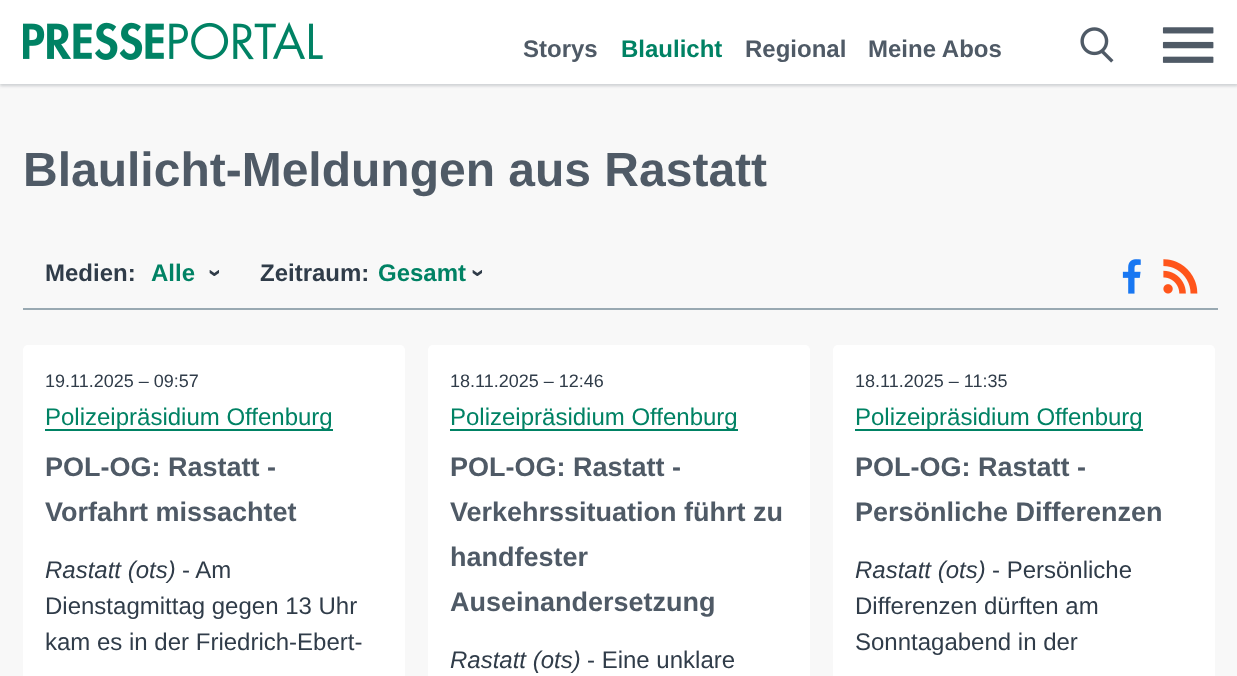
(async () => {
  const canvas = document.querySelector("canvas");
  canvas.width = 1237;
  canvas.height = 676;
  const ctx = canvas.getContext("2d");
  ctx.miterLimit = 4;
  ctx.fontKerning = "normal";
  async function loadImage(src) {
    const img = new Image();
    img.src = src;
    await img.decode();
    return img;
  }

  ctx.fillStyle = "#f8f8f8";
  ctx.fillRect(0, 0, 1237, 676);
  ctx.fillStyle = "rgba(79, 90, 102, 0.16)";
  ctx.filter = "blur(1.5px)";
  ctx.beginPath();
  ctx.rect(0, 2, 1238, 84);
  ctx.fill();
  ctx.filter = "none";
  ctx.fillStyle = "rgba(79, 90, 102, 0.1)";
  ctx.filter = "blur(1.5px)";
  ctx.beginPath();
  ctx.rect(0, 2, 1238, 84);
  ctx.fill();
  ctx.filter = "none";
  ctx.fillStyle = "#ffffff";
  ctx.fillRect(0, 0, 1237, 84);
  ctx.drawImage(await loadImage("img/1.png"), 23, 22, 300, 38);
  ctx.drawImage(await loadImage("img/2.png"), 1080, 27, 34, 36);
  ctx.drawImage(await loadImage("img/3.png"), 1162, 27, 52, 36);
  ctx.fillStyle = "#99a9b2";
  ctx.fillRect(23, 308, 1195, 2);
  ctx.drawImage(await loadImage("img/4.png"), 1122, 259, 19, 35);
  ctx.drawImage(await loadImage("img/5.png"), 1163, 259, 35, 35);
  ctx.fillStyle = "#ffffff";
  ctx.beginPath();
  ctx.roundRect(23, 345, 382, 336, 5);
  ctx.fill();
  ctx.fillStyle = "#008264";
  ctx.fillRect(45, 429, 288, 2);
  ctx.fillStyle = "#ffffff";
  ctx.beginPath();
  ctx.roundRect(428, 345, 382, 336, 5);
  ctx.fill();
  ctx.fillStyle = "#008264";
  ctx.fillRect(450, 429, 288, 2);
  ctx.fillStyle = "#ffffff";
  ctx.beginPath();
  ctx.roundRect(833, 345, 382, 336, 5);
  ctx.fill();
  ctx.fillStyle = "#008264";
  ctx.fillRect(855, 429, 288, 2);
  ctx.font = "bold 24px Liberation Sans";
  ctx.fillStyle = "#4f5a66";
  ctx.fillText("Storys", 523, 57);
  ctx.fillStyle = "#008264";
  ctx.fillText("Blaulicht", 621, 57);
  ctx.fillStyle = "#4f5a66";
  ctx.fillText("Regional", 745, 57);
  ctx.fillText("Meine Abos", 868, 57);
  ctx.font = "bold 48px Liberation Sans";
  ctx.fillText("Blaulicht-Meldungen aus Rastatt", 23, 186);
  ctx.font = "bold 24px Liberation Sans";
  ctx.fillStyle = "#303c49";
  ctx.fillText("Medien:", 45, 281);
  ctx.fillStyle = "#008264";
  ctx.fillText("Alle", 151, 281);
  ctx.fillStyle = "#303c49";
  ctx.save();
  ctx.translate(208, 269);
  ctx.rotate(90 * Math.PI / 180);
  ctx.fillText("›", 0, 0);
  ctx.restore();
  ctx.fillText("Zeitraum:", 260, 281);
  ctx.fillStyle = "#008264";
  ctx.fillText("Gesamt", 378, 281);
  ctx.fillStyle = "#303c49";
  ctx.save();
  ctx.translate(471, 269);
  ctx.rotate(90 * Math.PI / 180);
  ctx.fillText("›", 0, 0);
  ctx.restore();
  ctx.font = "18px Liberation Sans";
  ctx.fillText("19.11.2025 – 09:57", 45, 387);
  ctx.font = "24px Liberation Sans";
  ctx.fillStyle = "#008264";
  ctx.fillText("Polizeipräsidium Offenburg", 45, 425);
  ctx.font = "bold 27px Liberation Sans";
  ctx.fillStyle = "#4f5a66";
  ctx.fillText("POL-OG: Rastatt -", 45, 476);
  ctx.fillText("Vorfahrt missachtet", 45, 521);
  ctx.font = "italic 24px Liberation Sans";
  ctx.fillStyle = "#303c49";
  ctx.fillText("Rastatt (ots)", 45, 578);
  ctx.font = "24px Liberation Sans";
  for (const [text, x, y] of [
    ["- Am", 182, 578],
    ["Dienstagmittag gegen 13 Uhr", 45, 614],
    ["kam es in der Friedrich-Ebert-", 45, 650],
  ]) {
    ctx.fillText(text, x, y);
  }
  ctx.font = "18px Liberation Sans";
  ctx.fillText("18.11.2025 – 12:46", 450, 387);
  ctx.font = "24px Liberation Sans";
  ctx.fillStyle = "#008264";
  ctx.fillText("Polizeipräsidium Offenburg", 450, 425);
  ctx.font = "bold 27px Liberation Sans";
  ctx.fillStyle = "#4f5a66";
  for (const [text, x, y] of [
    ["POL-OG: Rastatt -", 450, 476],
    ["Verkehrssituation führt zu", 450, 521],
    ["handfester", 450, 566],
    ["Auseinandersetzung", 450, 611],
  ]) {
    ctx.fillText(text, x, y);
  }
  ctx.font = "italic 24px Liberation Sans";
  ctx.fillStyle = "#303c49";
  ctx.fillText("Rastatt (ots)", 450, 668);
  ctx.font = "24px Liberation Sans";
  ctx.fillText("- Eine unklare", 587, 668);
  ctx.font = "18px Liberation Sans";
  ctx.fillText("18.11.2025 – 11:35", 855, 387);
  ctx.font = "24px Liberation Sans";
  ctx.fillStyle = "#008264";
  ctx.fillText("Polizeipräsidium Offenburg", 855, 425);
  ctx.font = "bold 27px Liberation Sans";
  ctx.fillStyle = "#4f5a66";
  ctx.fillText("POL-OG: Rastatt -", 855, 476);
  ctx.fillText("Persönliche Differenzen", 855, 521);
  ctx.font = "italic 24px Liberation Sans";
  ctx.fillStyle = "#303c49";
  ctx.fillText("Rastatt (ots)", 855, 578);
  ctx.font = "24px Liberation Sans";
  for (const [text, x, y] of [
    ["- Persönliche", 992, 578],
    ["Differenzen dürften am", 855, 614],
    ["Sonntagabend in der", 855, 650],
  ]) {
    ctx.fillText(text, x, y);
  }
})();
